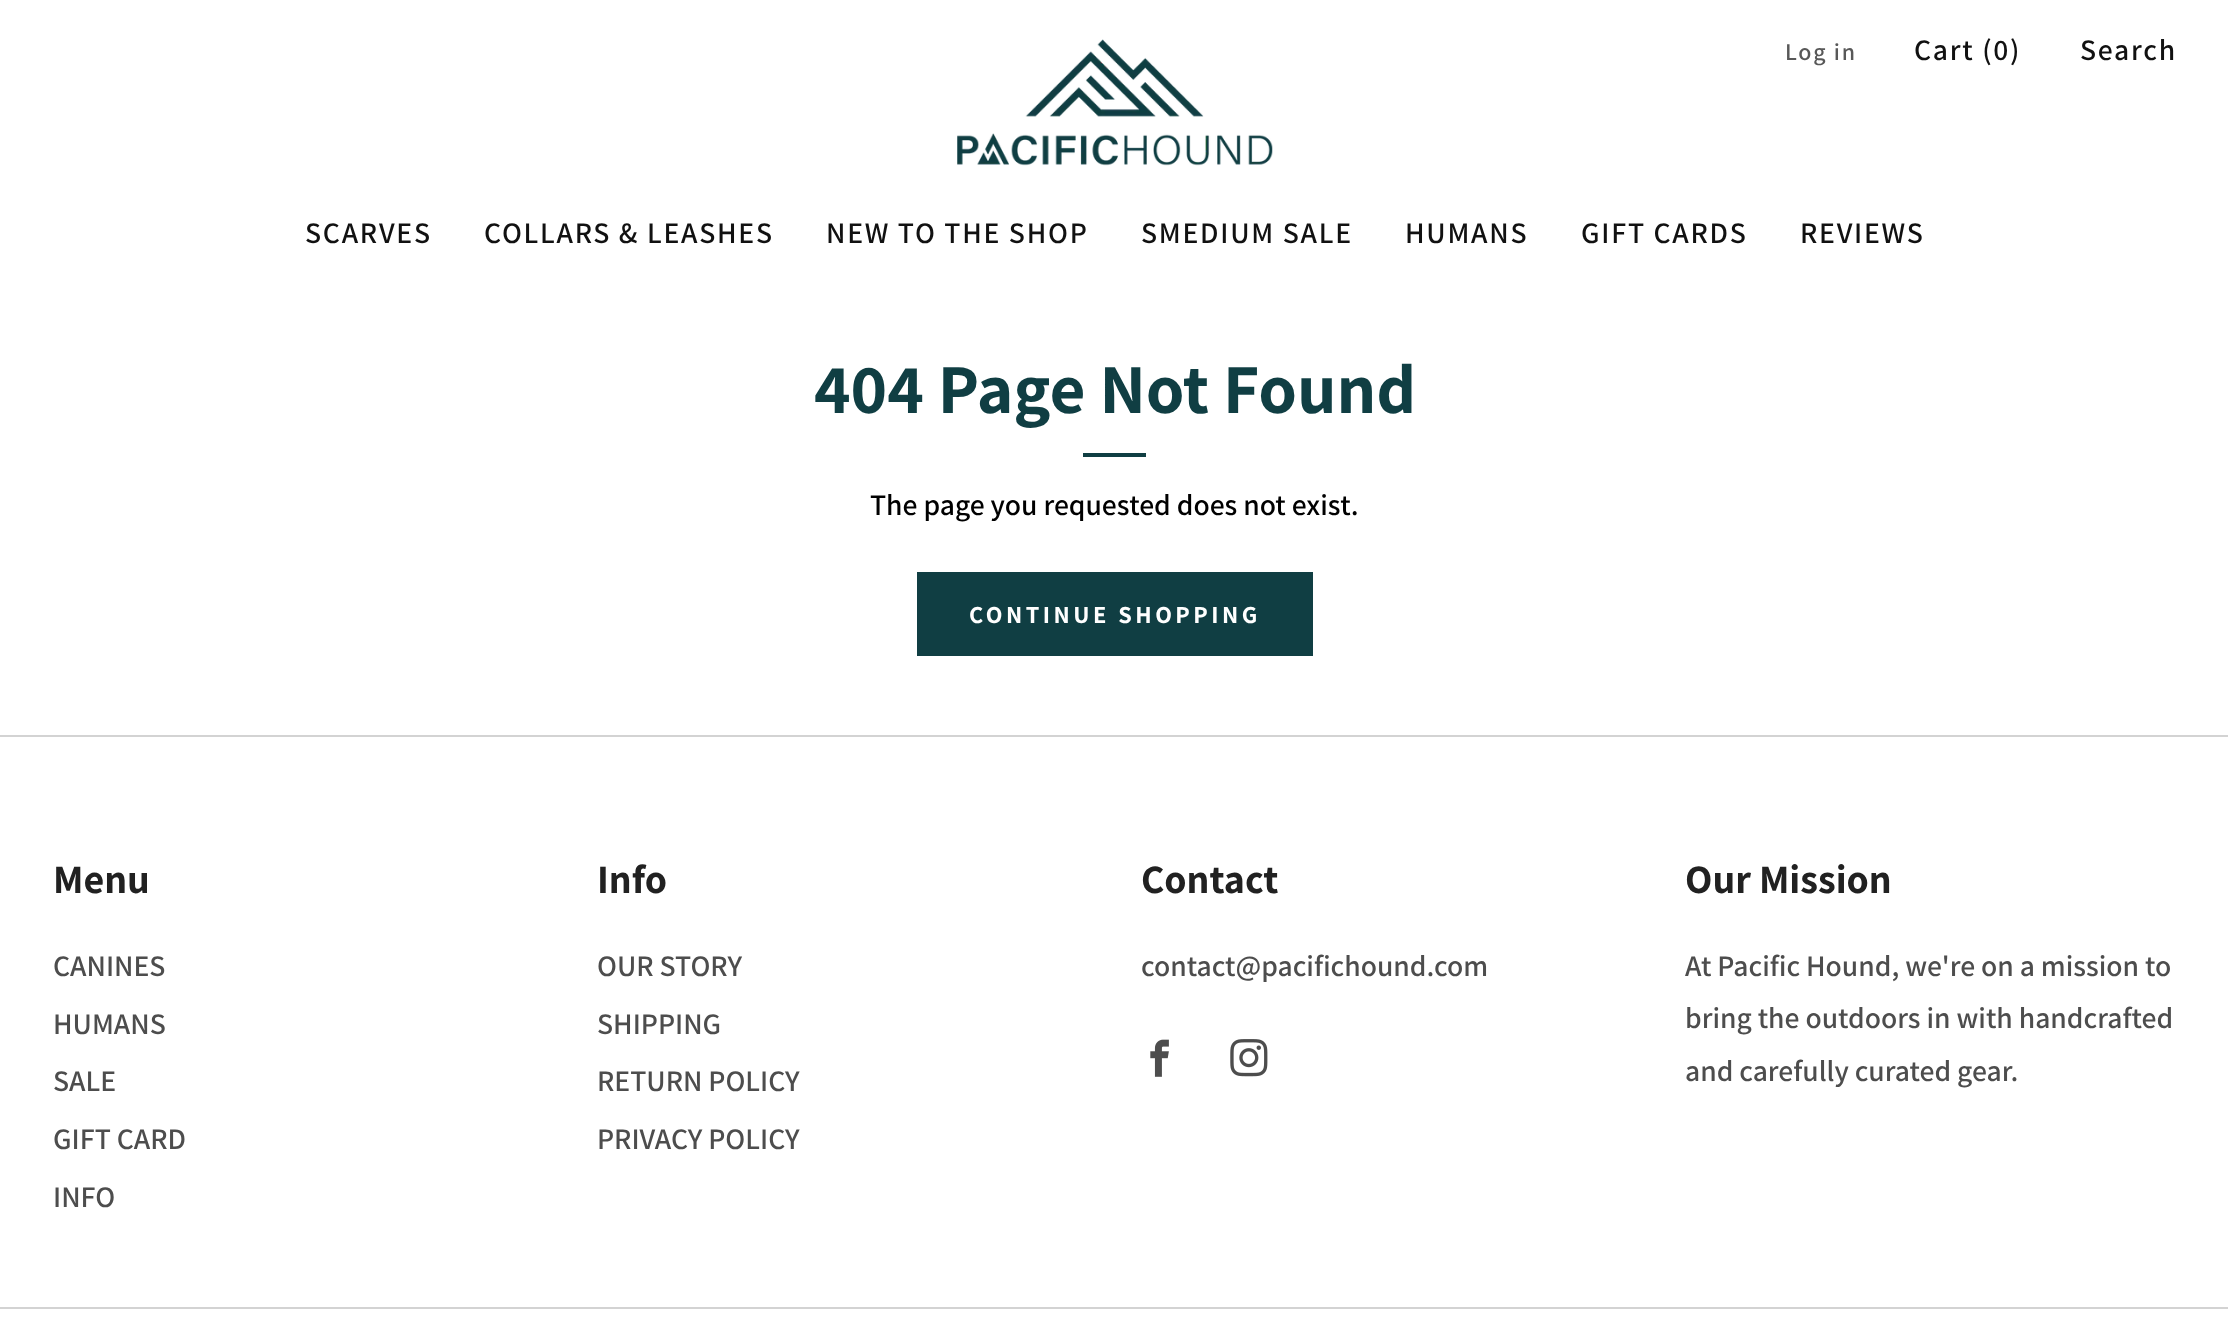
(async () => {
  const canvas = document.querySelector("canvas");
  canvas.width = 2228;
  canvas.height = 1330;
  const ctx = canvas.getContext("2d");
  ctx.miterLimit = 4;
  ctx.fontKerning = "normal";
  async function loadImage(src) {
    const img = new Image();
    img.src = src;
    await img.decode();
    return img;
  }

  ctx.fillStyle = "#ffffff";
  ctx.fillRect(0, 0, 2228, 1330);
  ctx.drawImage(await loadImage("img/1.png"), 957, 39, 316, 127);
  for (const [x, y, w, h, color] of [
    [1083, 453, 63, 4, "#103e43"],
    [917, 572, 396, 84, "#103e43"],
    [0, 735, 2228, 2, "#d3d3d3"],
  ]) {
    ctx.fillStyle = color;
    ctx.fillRect(x, y, w, h);
  }
  ctx.drawImage(await loadImage("img/2.png"), 1150, 1039, 19, 38);
  ctx.drawImage(await loadImage("img/3.png"), 1230, 1039, 38, 38);
  ctx.fillRect(0, 1307, 2228, 2);
  ctx.letterSpacing = "1.75px";
  ctx.font = "600 24px Assistant";
  ctx.fillStyle = "#585858";
  ctx.fillText("Log in", 1785, 60);
  ctx.font = "600 29.75px Assistant";
  ctx.fillStyle = "#111111";
  for (const [text, x, y] of [
    ["Cart (0)", 1914, 60],
    ["Search", 2080, 60],
    ["SCARVES", 305, 243],
    ["COLLARS & LEASHES", 484, 243],
    ["NEW TO THE SHOP", 826, 243],
    ["SMEDIUM SALE", 1141, 243],
    ["HUMANS", 1405, 243],
    ["GIFT CARDS", 1581, 243],
    ["REVIEWS", 1800, 243],
  ]) {
    ctx.fillText(text, x, y);
  }
  ctx.letterSpacing = "0px";
  ctx.font = "bold 70px Assistant";
  ctx.fillStyle = "#103e43";
  ctx.fillText("404 Page Not Found", 814, 413);
  ctx.font = "600 29.75px Assistant";
  ctx.fillStyle = "#000000";
  ctx.fillText("The page you requested does not exist.", 870, 515);
  ctx.letterSpacing = "3.5px";
  ctx.font = "bold 24.5px Assistant";
  ctx.fillStyle = "#ffffff";
  ctx.fillText("CONTINUE SHOPPING", 969, 623);
  ctx.letterSpacing = "0px";
  ctx.font = "bold 40.25px Assistant";
  ctx.fillStyle = "#212121";
  ctx.fillText("Menu", 53, 893);
  ctx.font = "600 29.75px Assistant";
  ctx.fillStyle = "#4d4d4d";
  for (const [text, x, y] of [
    ["CANINES", 53, 976],
    ["HUMANS", 53, 1034],
    ["SALE", 53, 1091],
    ["GIFT CARD", 53, 1149],
    ["INFO", 53, 1207],
  ]) {
    ctx.fillText(text, x, y);
  }
  ctx.font = "bold 40.25px Assistant";
  ctx.fillStyle = "#212121";
  ctx.fillText("Info", 597, 893);
  ctx.font = "600 29.75px Assistant";
  ctx.fillStyle = "#4d4d4d";
  for (const [text, x, y] of [
    ["OUR STORY", 597, 976],
    ["SHIPPING", 597, 1034],
    ["RETURN POLICY", 597, 1091],
    ["PRIVACY POLICY", 597, 1149],
  ]) {
    ctx.fillText(text, x, y);
  }
  ctx.font = "bold 40.25px Assistant";
  ctx.fillStyle = "#212121";
  ctx.fillText("Contact", 1141, 893);
  ctx.font = "600 29.75px Assistant";
  ctx.fillStyle = "#4d4d4d";
  ctx.fillText("contact@pacifichound.com", 1141, 976);
  ctx.font = "bold 40.25px Assistant";
  ctx.fillStyle = "#212121";
  ctx.fillText("Our Mission", 1685, 893);
  ctx.font = "600 29.75px Assistant";
  ctx.fillStyle = "#4d4d4d";
  for (const [text, x, y] of [
    ["At Pacific Hound, we're on a mission to", 1685, 976],
    ["bring the outdoors in with handcrafted", 1685, 1028],
    ["and carefully curated gear.", 1685, 1081],
  ]) {
    ctx.fillText(text, x, y);
  }
})();
